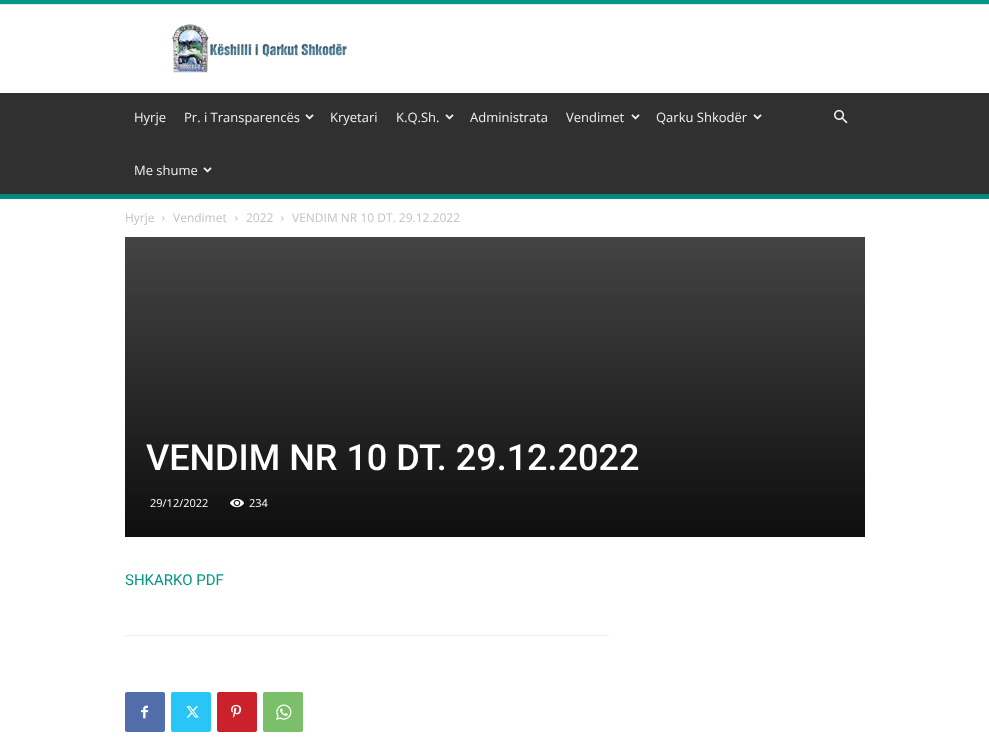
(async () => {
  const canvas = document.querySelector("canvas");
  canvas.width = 989;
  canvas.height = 749;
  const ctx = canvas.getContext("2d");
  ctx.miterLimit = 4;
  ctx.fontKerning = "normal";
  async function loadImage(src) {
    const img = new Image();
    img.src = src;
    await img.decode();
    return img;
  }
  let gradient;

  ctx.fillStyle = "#ffffff";
  ctx.fillRect(0, 0, 989, 749);
  ctx.fillStyle = "#009688";
  ctx.fillRect(0, 0, 989, 4);
  ctx.fillStyle = "#e9e9e9";
  ctx.fillRect(0, 4, 989, 1);
  ctx.drawImage(await loadImage("img/1.png"), 172, 24, 175, 49);
  ctx.fillStyle = "#303030";
  ctx.fillRect(0, 93, 989, 101);
  ctx.drawImage(await loadImage("img/2.png"), 305, 114, 9, 6);
  ctx.drawImage(await loadImage("img/2.png"), 445, 114, 9, 6);
  ctx.drawImage(await loadImage("img/2.png"), 631, 114, 9, 6);
  ctx.drawImage(await loadImage("img/2.png"), 753, 114, 9, 6);
  ctx.drawImage(await loadImage("img/2.png"), 203, 167, 9, 6);
  ctx.drawImage(await loadImage("img/3.png"), 834, 109, 14, 15);
  ctx.fillStyle = "#009688";
  ctx.fillRect(0, 194, 989, 5);
  ctx.drawImage(await loadImage("img/4.png"), 0, 194, 989, 5);
  ctx.drawImage(await loadImage("img/5.png"), 162, 216, 3, 5);
  ctx.drawImage(await loadImage("img/5.png"), 235, 216, 3, 5);
  ctx.drawImage(await loadImage("img/5.png"), 281, 216, 3, 5);
  gradient = ctx.createLinearGradient(495, 237, 495, 537);
  gradient.addColorStop(0, "#444444");
  gradient.addColorStop(1, "#0e0e0e");
  ctx.fillStyle = gradient;
  ctx.fillRect(125, 237, 740, 300);
  ctx.drawImage(await loadImage("img/6.png"), 230, 498, 14, 10);
  ctx.fillStyle = "#ededed";
  ctx.fillRect(125, 635, 484, 1);
  ctx.fillStyle = "#516eab";
  ctx.beginPath();
  ctx.roundRect(125, 692, 40, 40, 2);
  ctx.fill();
  ctx.drawImage(await loadImage("img/7.png"), 141, 705, 7, 14);
  ctx.fillStyle = "#29c5f6";
  ctx.beginPath();
  ctx.roundRect(171, 692, 40, 40, 2);
  ctx.fill();
  ctx.drawImage(await loadImage("img/8.png"), 186, 706, 13, 12);
  ctx.fillStyle = "#ca212a";
  ctx.beginPath();
  ctx.roundRect(217, 692, 40, 40, 2);
  ctx.fill();
  ctx.drawImage(await loadImage("img/9.png"), 231, 704, 11, 14);
  ctx.fillStyle = "#7bbf6a";
  ctx.beginPath();
  ctx.roundRect(263, 692, 40, 40, 2);
  ctx.fill();
  ctx.drawImage(await loadImage("img/10.png"), 276, 704, 16, 16);
  ctx.font = "13px Open Sans";
  ctx.fillStyle = "#efefef";
  for (const [text, x, y] of [
    ["Hyrje", 134, 122],
    ["Pr. i Transparencës", 184, 122],
    ["Kryetari", 330, 122],
    ["K.Q.Sh.", 396, 122],
    ["Administrata", 470, 122],
    ["Vendimet", 566, 122],
    ["Qarku Shkodër", 656, 122],
    ["Me shume", 134, 175],
  ]) {
    ctx.fillText(text, x, y);
  }
  ctx.font = "12px Open Sans";
  ctx.fillStyle = "#c3c3c3";
  for (const [text, x, y] of [
    ["Hyrje", 125, 222],
    ["Vendimet", 173, 222],
    ["2022", 246, 222],
    ["VENDIM NR 10 DT. 29.12.2022", 292, 222],
  ]) {
    ctx.fillText(text, x, y);
  }
  ctx.font = "500 36px Roboto";
  ctx.fillStyle = "#ffffff";
  ctx.fillText("VENDIM NR 10 DT. 29.12.2022", 146, 470);
  ctx.font = "11px Open Sans";
  ctx.fillText("29/12/2022", 150, 507);
  ctx.fillText("234", 249, 507);
  ctx.font = "15px Roboto";
  ctx.fillStyle = "#009688";
  ctx.fillText("SHKARKO PDF", 125, 585);
})();
